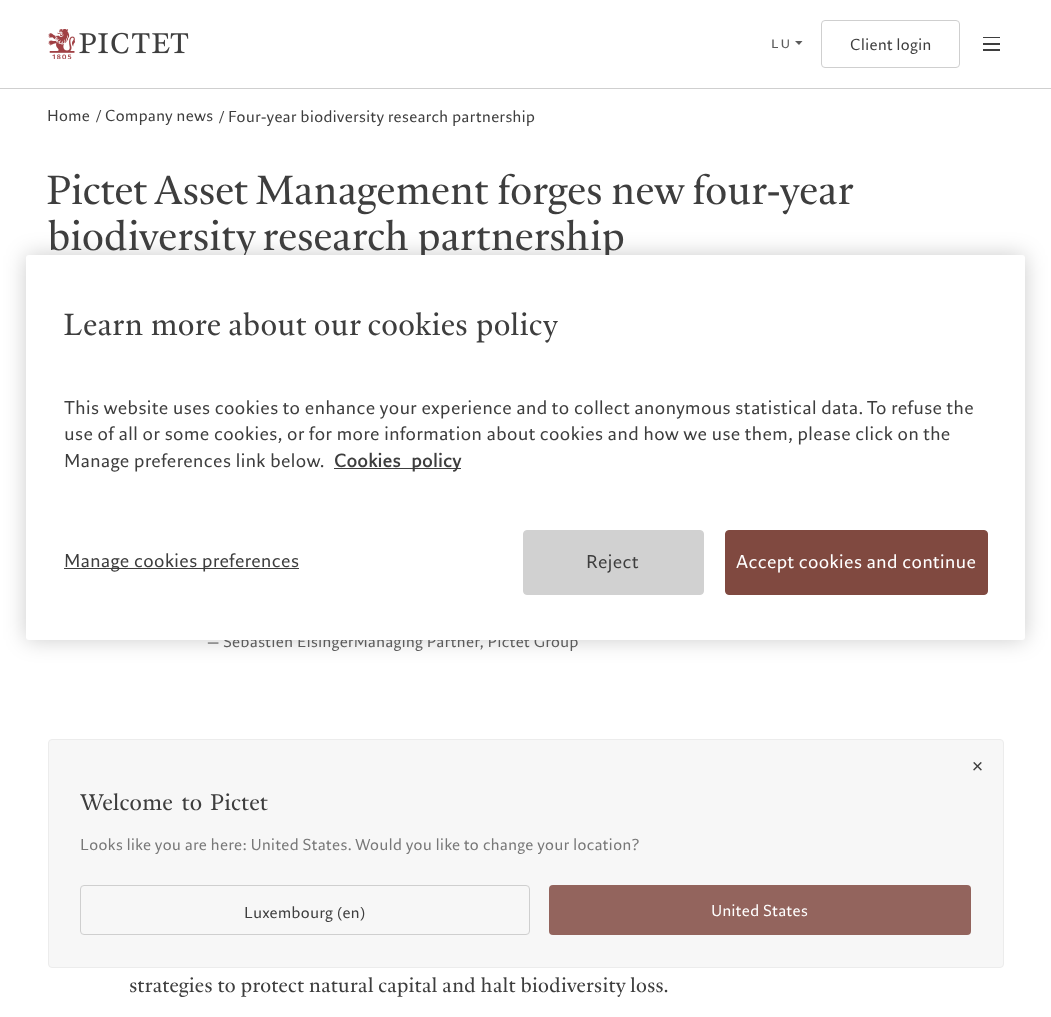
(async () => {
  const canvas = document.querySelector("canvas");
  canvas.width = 1051;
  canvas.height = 1017;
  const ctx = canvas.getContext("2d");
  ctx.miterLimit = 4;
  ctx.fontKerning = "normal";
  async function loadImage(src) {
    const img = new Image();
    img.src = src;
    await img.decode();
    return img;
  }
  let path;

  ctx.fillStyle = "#ffffff";
  ctx.fillRect(0, 0, 1051, 1017);
  ctx.fillStyle = "#cfcfcf";
  ctx.fillRect(0, 88, 1051, 1);
  ctx.drawImage(await loadImage("img/1.png"), 48, 29, 27, 30);
  ctx.drawImage(await loadImage("img/2.png"), 79, 32, 110, 22);
  ctx.fillStyle = "#5b5b5b";
  path = new Path2D("M795 41H802.5L799 45Z");
  ctx.fill(path);
  ctx.beginPath();
  ctx.roundRect(821.5, 20.5, 138, 47, 3.5);
  ctx.strokeStyle = "#cfcfcf";
  ctx.stroke();
  ctx.drawImage(await loadImage("img/3.png"), 983, 37, 17, 14);
  ctx.fillStyle = "rgba(0, 0, 0, 0.2)";
  ctx.filter = "blur(11px)";
  ctx.beginPath();
  ctx.roundRect(26, 255, 999, 385, 3);
  ctx.fill();
  ctx.filter = "none";
  ctx.fillStyle = "#f7f7f7";
  ctx.beginPath();
  ctx.roundRect(48.5, 739.5, 955, 228, 3.5);
  ctx.fill();
  ctx.strokeStyle = "#ececec";
  ctx.stroke();
  ctx.drawImage(await loadImage("img/4.png"), 973, 762, 9, 9);
  ctx.beginPath();
  ctx.roundRect(80.5, 885.5, 449, 49, 3.5);
  ctx.strokeStyle = "#cfcfcf";
  ctx.stroke();
  ctx.fillStyle = "#93645d";
  ctx.beginPath();
  ctx.roundRect(549, 885, 422, 50, 4);
  ctx.fill();
  ctx.font = "15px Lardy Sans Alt";
  ctx.fillStyle = "#5b5b5b";
  ctx.fillText("lu", 770, 48);
  ctx.font = "15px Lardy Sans";
  ctx.fillStyle = "#3e3e3e";
  for (const [text, x, y] of [
    ["Client login", 850, 50],
    ["Home", 47, 121],
    ["/", 95, 121],
    ["Company news", 105, 121],
    ["/", 218, 122],
    ["Four-year biodiversity research partnership", 228, 122],
  ]) {
    ctx.fillText(text, x, y);
  }
  ctx.letterSpacing = "-0.4px";
  ctx.wordSpacing = "-1.25px";
  ctx.font = "38.4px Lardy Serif";
  ctx.fillText("Pictet Asset Management forges new four-year", 47, 204);
  ctx.wordSpacing = "-2px";
  ctx.fillText("biodiversity research partnership", 47, 250);
  ctx.letterSpacing = "0px";
  ctx.wordSpacing = "0.25px";
  ctx.font = "15px Lardy Sans";
  ctx.fillStyle = "#5b5b5b";
  ctx.fillText("— Sébastien EisingerManaging Partner, Pictet Group", 207, 647);
  ctx.wordSpacing = "-0.25px";
  ctx.font = "18.75px 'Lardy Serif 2'";
  ctx.fillStyle = "#3e3e3e";
  ctx.fillText("strategies to protect natural capital and halt biodiversity loss.", 129, 992);
  ctx.fillStyle = "#ffffff";
  ctx.beginPath();
  ctx.roundRect(26, 255, 999, 385, 3);
  ctx.fill();
  ctx.font = "28.75px 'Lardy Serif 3'";
  ctx.fillStyle = "#3e3e3e";
  ctx.fillText("Learn more about our cookies policy", 64, 335);
  ctx.wordSpacing = "0px";
  ctx.font = "17.5px Lardy Sans";
  for (const [text, x, y] of [
    ["This website uses cookies to enhance your experience and to collect anonymous statistical data. To refuse the", 64, 414],
    ["use of all or some cookies, or for more information about cookies and how we use them, please click on the", 64, 440],
    ["Manage preferences link below.", 64, 467],
  ]) {
    ctx.fillText(text, x, y);
  }
  ctx.fillRect(334, 468, 127, 1);
  ctx.wordSpacing = "6px";
  ctx.font = "bold 17.5px Lardy Sans";
  ctx.fillText("Cookies policy", 334, 467);
  ctx.fillRect(64, 568, 235, 1);
  ctx.wordSpacing = "0px";
  ctx.font = "17.5px Lardy Sans";
  ctx.fillText("Manage cookies preferences", 64, 567);
  ctx.fillStyle = "#d1d1d1";
  ctx.beginPath();
  ctx.roundRect(523.5, 530.5, 180, 64, 3.5);
  ctx.fill();
  ctx.strokeStyle = "#d1d1d1";
  ctx.stroke();
  ctx.fillStyle = "#3e3e3e";
  ctx.fillText("Reject", 586, 568);
  ctx.fillStyle = "#804940";
  ctx.beginPath();
  ctx.roundRect(725.5, 530.5, 262, 64, 3.5);
  ctx.fill();
  ctx.strokeStyle = "#804940";
  ctx.stroke();
  ctx.fillStyle = "#ffffff";
  ctx.fillText("Accept cookies and continue", 736, 568);
  ctx.wordSpacing = "3px";
  ctx.font = "21.25px 'Lardy Serif 2'";
  ctx.fillStyle = "#3e3e3e";
  ctx.fillText("Welcome to Pictet", 80, 810);
  ctx.wordSpacing = "0px";
  ctx.font = "15px Lardy Sans";
  ctx.fillStyle = "#787878";
  ctx.fillText("Looks like you are here: United States. Would you like to change your location?", 80, 850);
  ctx.fillStyle = "#3e3e3e";
  ctx.fillText("Luxembourg (en)", 244, 918);
  ctx.fillStyle = "#ffffff";
  ctx.fillText("United States", 711, 916);
})();
